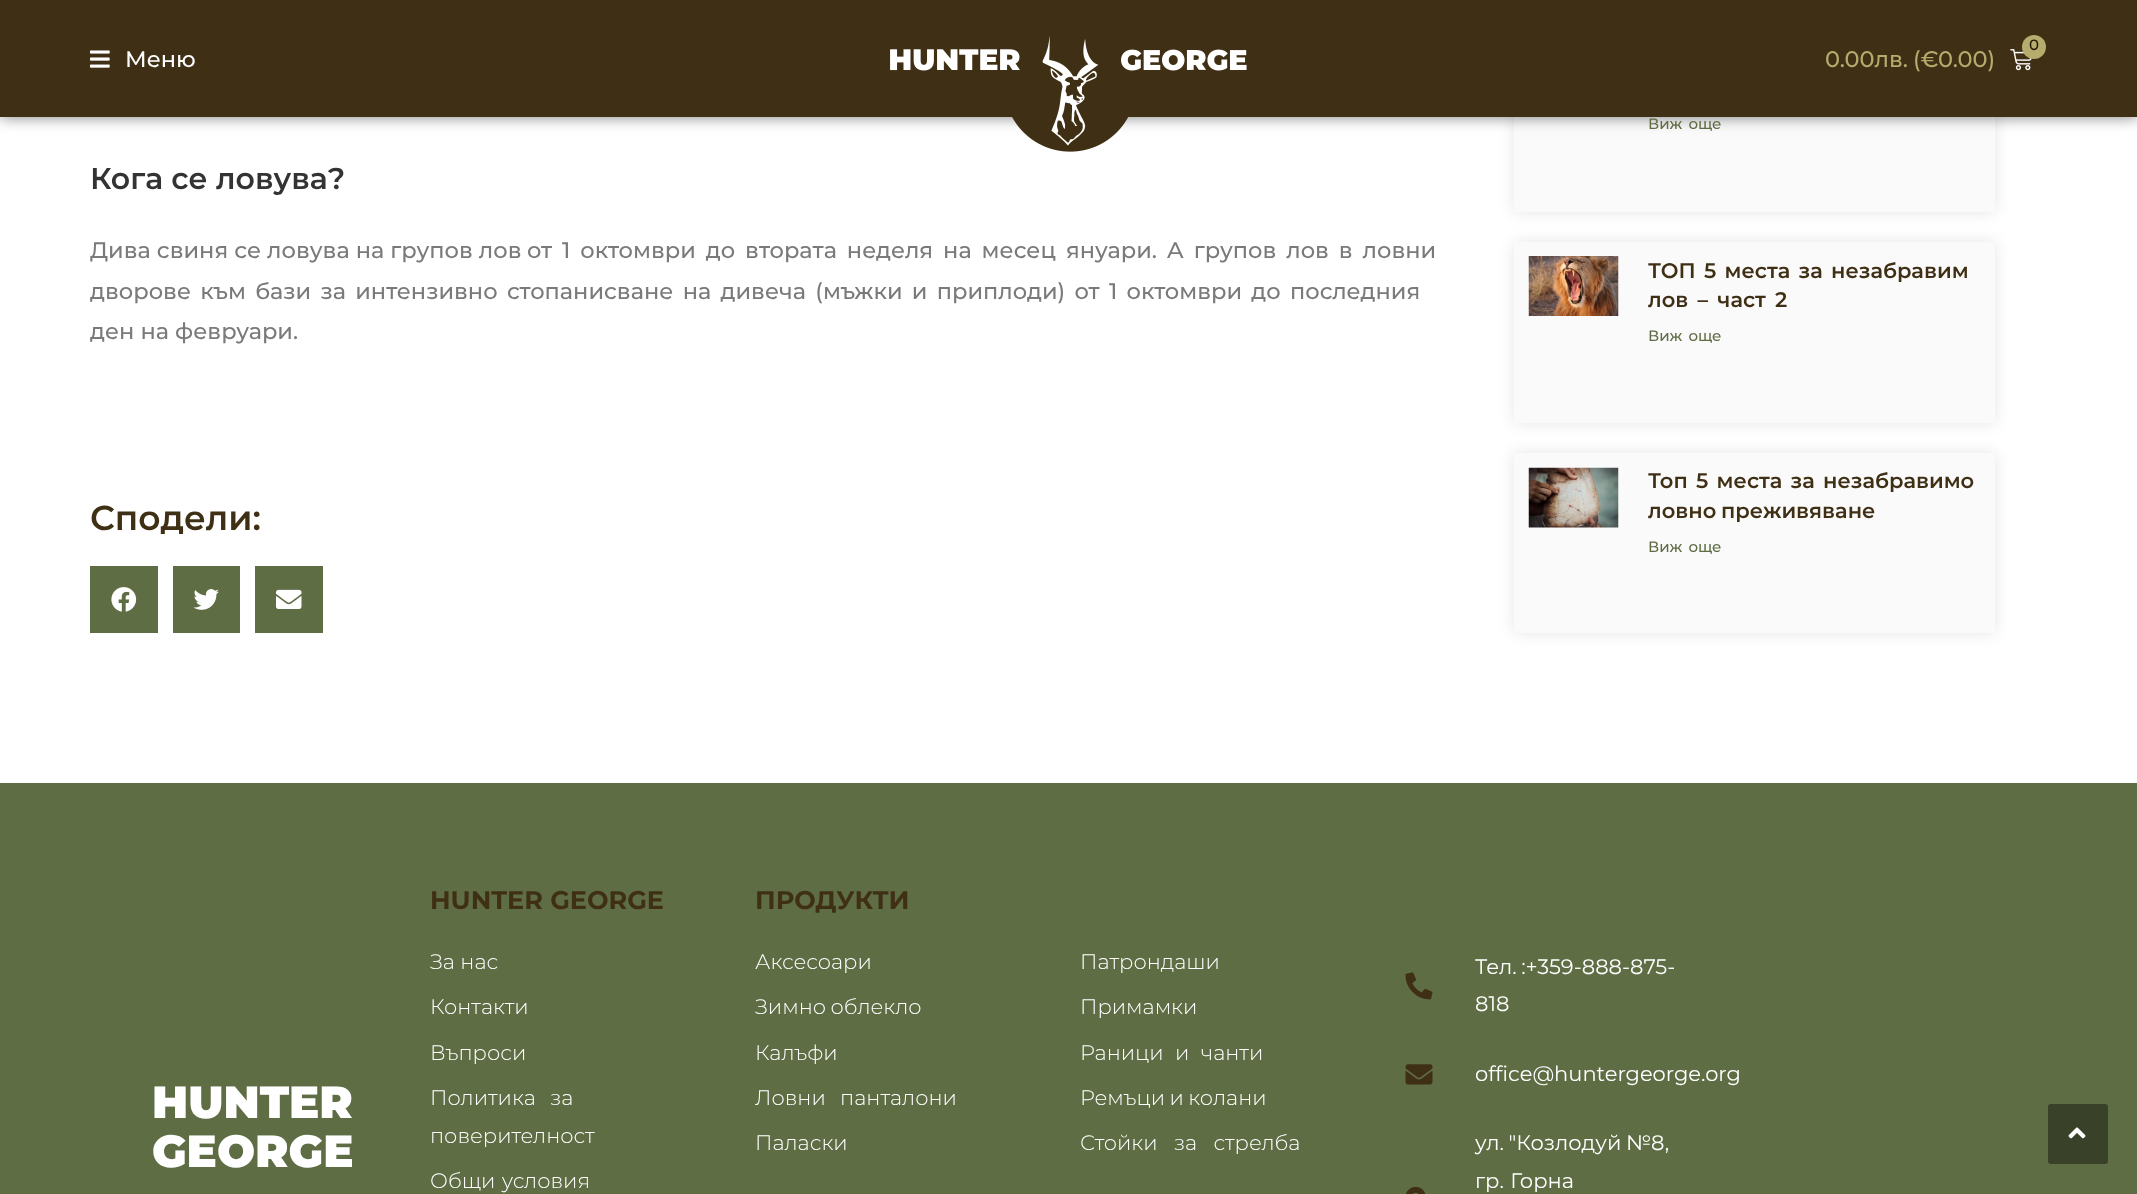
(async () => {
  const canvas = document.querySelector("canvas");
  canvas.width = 2137;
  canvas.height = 1194;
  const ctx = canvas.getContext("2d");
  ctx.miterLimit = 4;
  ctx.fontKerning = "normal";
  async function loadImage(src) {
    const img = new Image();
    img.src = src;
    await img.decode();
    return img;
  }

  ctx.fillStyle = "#ffffff";
  ctx.fillRect(0, 0, 2137, 1194);
  ctx.fillStyle = "rgba(0, 0, 0, 0.1)";
  ctx.filter = "blur(7.5px)";
  ctx.beginPath();
  ctx.rect(1514, 2, 481, 210);
  ctx.fill();
  ctx.filter = "none";
  ctx.fillStyle = "#fafafa";
  ctx.fillRect(1514, 117, 481, 95);
  ctx.fillStyle = "rgba(0, 0, 0, 0.5)";
  ctx.filter = "blur(7.5px)";
  ctx.beginPath();
  ctx.rect(0, 0, 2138, 117);
  ctx.fill();
  ctx.filter = "none";
  ctx.fillStyle = "#3f3015";
  ctx.fillRect(0, 0, 2137, 117);
  ctx.drawImage(await loadImage("img/1.png"), 90, 50, 20, 18);
  ctx.drawImage(await loadImage("img/2.png"), 890, 36, 357, 116);
  ctx.drawImage(await loadImage("img/3.png"), 2010, 49, 22, 22);
  ctx.fillStyle = "#b6ac6d";
  ctx.beginPath();
  ctx.arc(2034, 47, 12, 0, Math.PI * 2);
  ctx.fill();
  ctx.fillStyle = "#5f6d45";
  ctx.fillRect(90, 566, 68, 67);
  ctx.drawImage(await loadImage("img/4.png"), 111, 587, 26, 25);
  ctx.fillRect(173, 566, 67, 67);
  ctx.drawImage(await loadImage("img/5.png"), 193, 589, 26, 21);
  ctx.fillRect(255, 566, 68, 67);
  ctx.drawImage(await loadImage("img/6.png"), 276, 589, 26, 20);
  ctx.fillStyle = "rgba(0, 0, 0, 0.1)";
  ctx.filter = "blur(7.5px)";
  ctx.beginPath();
  ctx.rect(1514, 242, 481, 181);
  ctx.fill();
  ctx.filter = "none";
  ctx.fillStyle = "#fafafa";
  ctx.fillRect(1514, 242, 481, 181);
  ctx.drawImage(await loadImage("img/7.png"), 1528, 256, 91, 60);
  ctx.fillStyle = "rgba(0, 0, 0, 0.1)";
  ctx.filter = "blur(7.5px)";
  ctx.beginPath();
  ctx.rect(1514, 453, 481, 180);
  ctx.fill();
  ctx.filter = "none";
  ctx.fillStyle = "#fafafa";
  ctx.fillRect(1514, 453, 481, 180);
  ctx.drawImage(await loadImage("img/8.png"), 1528, 467, 91, 61);
  ctx.fillStyle = "#5f6d45";
  ctx.fillRect(0, 783, 2137, 411);
  ctx.drawImage(await loadImage("img/9.png"), 1405, 972, 28, 28);
  ctx.drawImage(await loadImage("img/10.png"), 1405, 1064, 28, 21);
  ctx.drawImage(await loadImage("img/11.png"), 1406, 1186, 20, 8);
  ctx.fillStyle = "#394129";
  ctx.beginPath();
  ctx.roundRect(2048, 1104, 60, 60, 3);
  ctx.fill();
  ctx.drawImage(await loadImage("img/12.png"), 2068, 1127, 18, 12);
  ctx.font = "500 22.5px Montserrat";
  ctx.fillStyle = "#ffffff";
  ctx.fillText("Меню", 125, 67);
  ctx.font = "500 15px Montserrat";
  ctx.fillStyle = "#1e1900";
  ctx.fillText("0", 2029, 50);
  ctx.font = "500 22.5px Montserrat";
  ctx.fillStyle = "#b5ab6d";
  ctx.fillText("0.00лв.", 1825, 67);
  ctx.fillText("(€0.00)", 1913, 67);
  ctx.font = "600 30px Montserrat";
  ctx.fillStyle = "#333333";
  ctx.fillText("Кога се ловува?", 90, 189);
  ctx.font = "500 22.5px Montserrat";
  ctx.fillStyle = "#7a7a7a";
  ctx.fillText("Дива свиня се ловува на групов лов", 90, 258);
  ctx.wordSpacing = "3.9px";
  ctx.fillText("от 1 октомври до втората неделя на месец януари. А групов лов в ловни", 527, 258);
  ctx.wordSpacing = "3.25px";
  ctx.fillText("дворове към бази за интензивно стопанисване на дивеча (мъжки и приплоди) от 1 октомври до последния", 90, 299);
  ctx.wordSpacing = "0px";
  ctx.fillText("ден на февруари.", 90, 339);
  ctx.font = "600 34.5px Montserrat";
  ctx.fillStyle = "#3f3015";
  ctx.fillText("Сподели:", 90, 530);
  ctx.wordSpacing = "2px";
  ctx.font = "500 15px Montserrat";
  ctx.fillStyle = "#5f6d45";
  ctx.fillText("Виж още", 1648, 129);
  ctx.wordSpacing = "2.5px";
  ctx.font = "600 21px Montserrat";
  ctx.fillStyle = "#3f3015";
  ctx.fillText("ТОП 5 места за незабравим", 1648, 278);
  ctx.wordSpacing = "3.5px";
  ctx.fillText("лов – част 2", 1648, 307);
  ctx.wordSpacing = "2px";
  ctx.font = "500 15px Montserrat";
  ctx.fillStyle = "#5f6d45";
  ctx.fillText("Виж още", 1648, 341);
  ctx.wordSpacing = "2.5px";
  ctx.font = "600 21px Montserrat";
  ctx.fillStyle = "#3f3015";
  ctx.fillText("Топ 5 места за незабравимо", 1648, 488);
  ctx.wordSpacing = "-1px";
  ctx.fillText("ловно преживяване", 1648, 518);
  ctx.wordSpacing = "2px";
  ctx.font = "500 15px Montserrat";
  ctx.fillStyle = "#5f6d45";
  ctx.fillText("Виж още", 1648, 552);
  ctx.wordSpacing = "0px";
  ctx.font = "900 45px Montserrat";
  ctx.fillStyle = "#ffffff";
  ctx.fillText("HUNTER", 152, 1118);
  ctx.fillText("GEORGE", 152, 1167);
  ctx.font = "bold 25.5px Montserrat";
  ctx.fillStyle = "#3f3015";
  ctx.fillText("HUNTER GEORGE", 430, 909);
  ctx.font = "300 21px Montserrat";
  ctx.fillStyle = "#ffffff";
  for (const [text, x, y] of [
    ["За нас", 430, 969],
    ["Контакти", 430, 1014],
    ["Въпроси", 430, 1060],
  ]) {
    ctx.fillText(text, x, y);
  }
  ctx.wordSpacing = "9px";
  ctx.fillText("Политика за", 430, 1105);
  ctx.wordSpacing = "0px";
  ctx.fillText("поверителност", 430, 1143);
  ctx.wordSpacing = "1px";
  ctx.fillText("Общи условия", 430, 1188);
  ctx.wordSpacing = "0px";
  ctx.font = "bold 25.5px Montserrat";
  ctx.fillStyle = "#3f3015";
  ctx.fillText("ПРОДУКТИ", 755, 909);
  ctx.font = "300 21px Montserrat";
  ctx.fillStyle = "#ffffff";
  ctx.fillText("Аксесоари", 755, 969);
  ctx.wordSpacing = "-1px";
  ctx.fillText("Зимно облекло", 755, 1014);
  ctx.wordSpacing = "0px";
  ctx.fillText("Калъфи", 755, 1060);
  ctx.wordSpacing = "9px";
  ctx.fillText("Ловни панталони", 755, 1105);
  ctx.wordSpacing = "0px";
  for (const [text, x, y] of [
    ["Паласки", 755, 1150],
    ["Патрондаши", 1080, 969],
    ["Примамки", 1080, 1014],
  ]) {
    ctx.fillText(text, x, y);
  }
  ctx.wordSpacing = "6px";
  ctx.fillText("Раници и чанти", 1080, 1060);
  ctx.wordSpacing = "-1px";
  ctx.fillText("Ремъци и колани", 1080, 1105);
  ctx.wordSpacing = "11px";
  ctx.fillText("Стойки за стрелба", 1080, 1150);
  ctx.wordSpacing = "-1px";
  ctx.font = "21px Montserrat";
  ctx.fillText("Тел. :+359-888-875-", 1475, 974);
  ctx.wordSpacing = "0px";
  ctx.fillText("818", 1475, 1011);
  ctx.fillText("office@huntergeorge.org", 1475, 1081);
  ctx.wordSpacing = "-1px";
  ctx.fillText("ул. \"Козлодуй №8,", 1475, 1150);
  ctx.wordSpacing = "1px";
  ctx.fillText("гр. Горна", 1475, 1188);
})();
